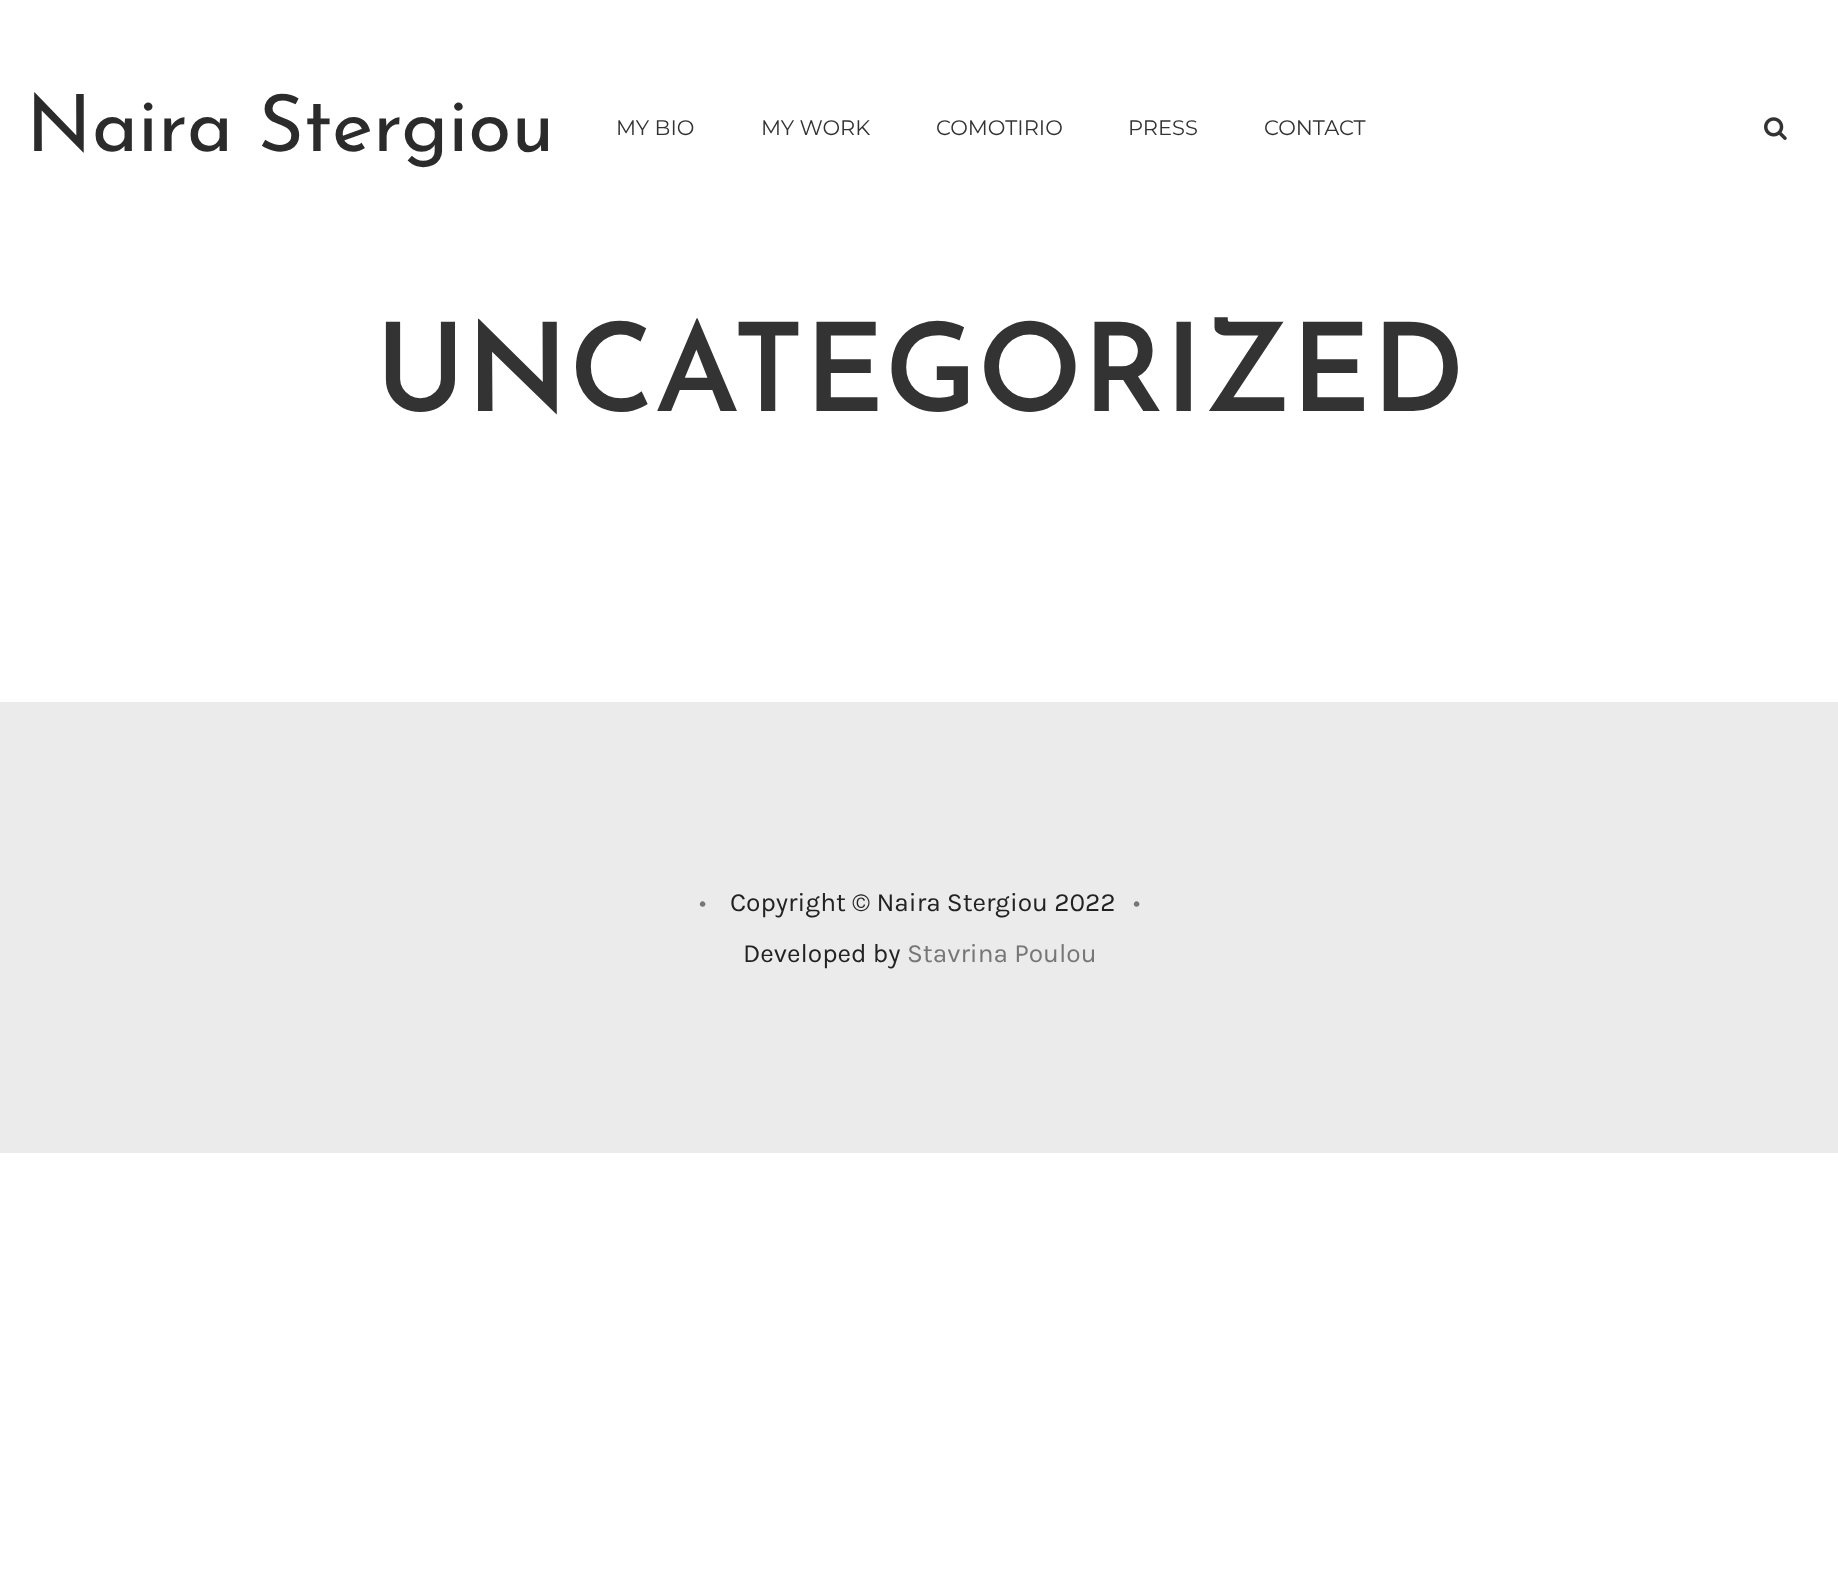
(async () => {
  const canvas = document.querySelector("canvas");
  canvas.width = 1838;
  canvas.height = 1577;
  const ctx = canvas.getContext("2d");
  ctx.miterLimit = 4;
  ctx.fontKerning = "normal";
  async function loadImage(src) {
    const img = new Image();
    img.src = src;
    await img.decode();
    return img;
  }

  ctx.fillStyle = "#ffffff";
  ctx.fillRect(0, 0, 1838, 1577);
  ctx.drawImage(await loadImage("img/1.png"), 1764, 117, 23, 23);
  ctx.fillStyle = "#ebebeb";
  ctx.fillRect(0, 702, 1838, 451);
  ctx.font = "78.75px Josefin Sans";
  ctx.fillStyle = "#2b2b2b";
  ctx.fillText("Naira Stergiou", 26, 151);
  ctx.font = "21px Montserrat";
  ctx.fillStyle = "#333333";
  for (const [text, x, y] of [
    ["MY BIO", 616, 135],
    ["MY WORK", 761, 135],
    ["COMOTIRIO", 936, 135],
    ["PRESS", 1128, 135],
    ["CONTACT", 1264, 135],
  ]) {
    ctx.fillText(text, x, y);
  }
  ctx.font = "600 122.5px Josefin Sans";
  ctx.fillText("UNCATEGORIZED", 375, 411);
  ctx.font = "26.25px Karla";
  ctx.fillStyle = "#767676";
  ctx.fillText("•", 699, 911);
  ctx.fillStyle = "#222222";
  ctx.fillText("Copyright © Naira Stergiou 2022", 730, 911);
  ctx.fillStyle = "#767676";
  ctx.fillText("•", 1133, 911);
  ctx.fillStyle = "#222222";
  ctx.fillText("Developed by", 743, 962);
  ctx.fillStyle = "#767676";
  ctx.fillText("Stavrina Poulou", 907, 962);
})();
